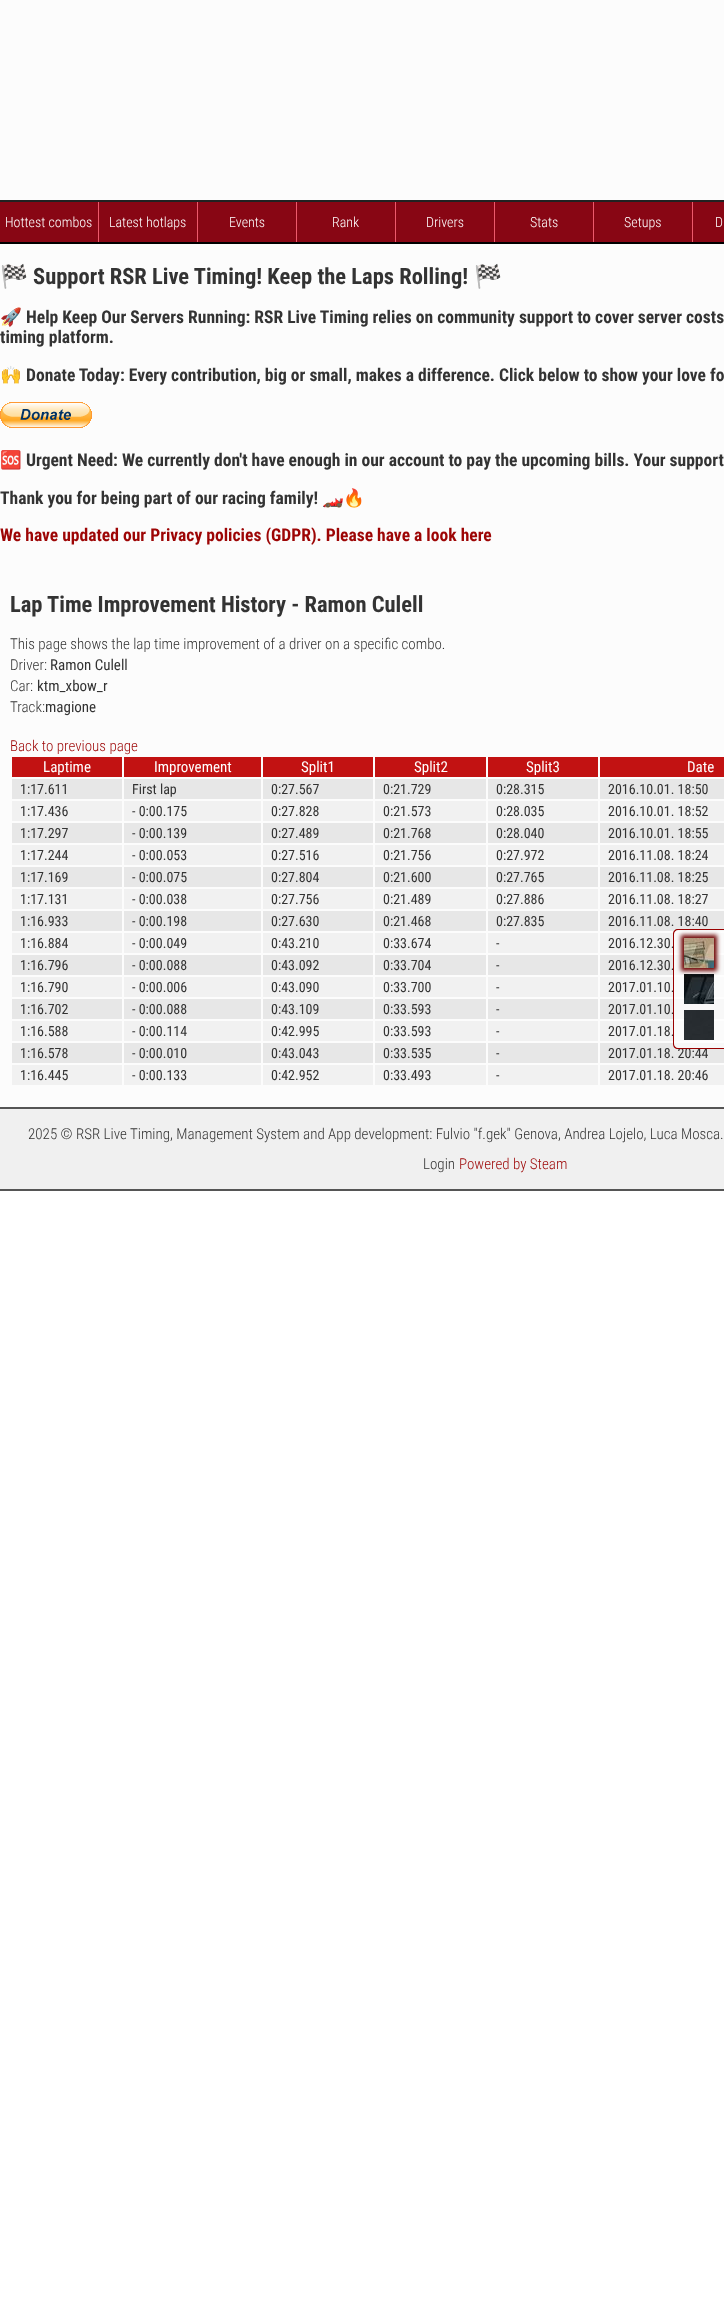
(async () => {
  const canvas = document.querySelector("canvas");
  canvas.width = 724;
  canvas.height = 2322;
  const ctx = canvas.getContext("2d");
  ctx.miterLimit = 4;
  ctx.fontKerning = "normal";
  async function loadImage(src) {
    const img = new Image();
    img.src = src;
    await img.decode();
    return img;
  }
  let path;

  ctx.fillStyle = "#ffffff";
  ctx.fillRect(0, 0, 724, 2322);
  for (const [x, y, w, h, color] of [
    [0, 0, 724, 1107, "#fcfcfc"],
    [0, 200, 724, 2, "#222222"],
    [0, 242, 724, 2, "#000000"],
    [0, 202, 98, 40, "#880614"],
    [98, 202, 1, 40, "#ed5a6c"],
    [99, 202, 98, 40, "#880614"],
    [197, 202, 1, 40, "#ed5a6c"],
    [198, 202, 98, 40, "#880614"],
    [296, 202, 1, 40, "#ed5a6c"],
    [297, 202, 98, 40, "#880614"],
    [395, 202, 1, 40, "#ed5a6c"],
    [396, 202, 98, 40, "#880614"],
    [494, 202, 1, 40, "#ed5a6c"],
    [495, 202, 98, 40, "#880614"],
    [593, 202, 1, 40, "#ed5a6c"],
    [594, 202, 98, 40, "#880614"],
    [692, 202, 1, 40, "#ed5a6c"],
    [693, 202, 31, 40, "#880614"],
  ]) {
    ctx.fillStyle = color;
    ctx.fillRect(x, y, w, h);
  }
  ctx.drawImage(await loadImage("img/1.png"), 0, 402, 92, 26);
  for (const [x, y, w, h, color] of [
    [12, 757, 110, 20, "#c21212"],
    [124, 757, 137, 20, "#c21212"],
    [263, 757, 110, 20, "#c21212"],
    [375, 757, 111, 20, "#c21212"],
    [488, 757, 110, 20, "#c21212"],
    [600, 757, 124, 20, "#c21212"],
    [12, 779, 110, 20, "#e7e7e7"],
    [124, 779, 137, 20, "#e7e7e7"],
    [263, 779, 110, 20, "#e7e7e7"],
    [375, 779, 111, 20, "#e7e7e7"],
    [488, 779, 110, 20, "#e7e7e7"],
    [600, 779, 124, 20, "#e7e7e7"],
    [12, 801, 110, 20, "#f1f1f1"],
    [124, 801, 137, 20, "#f1f1f1"],
    [263, 801, 110, 20, "#f1f1f1"],
    [375, 801, 111, 20, "#f1f1f1"],
    [488, 801, 110, 20, "#f1f1f1"],
    [600, 801, 124, 20, "#f1f1f1"],
    [12, 823, 110, 20, "#e7e7e7"],
    [124, 823, 137, 20, "#e7e7e7"],
    [263, 823, 110, 20, "#e7e7e7"],
    [375, 823, 111, 20, "#e7e7e7"],
    [488, 823, 110, 20, "#e7e7e7"],
    [600, 823, 124, 20, "#e7e7e7"],
    [12, 845, 110, 20, "#f1f1f1"],
    [124, 845, 137, 20, "#f1f1f1"],
    [263, 845, 110, 20, "#f1f1f1"],
    [375, 845, 111, 20, "#f1f1f1"],
    [488, 845, 110, 20, "#f1f1f1"],
    [600, 845, 124, 20, "#f1f1f1"],
    [12, 867, 110, 20, "#e7e7e7"],
    [124, 867, 137, 20, "#e7e7e7"],
    [263, 867, 110, 20, "#e7e7e7"],
    [375, 867, 111, 20, "#e7e7e7"],
    [488, 867, 110, 20, "#e7e7e7"],
    [600, 867, 124, 20, "#e7e7e7"],
    [12, 889, 110, 20, "#f1f1f1"],
    [124, 889, 137, 20, "#f1f1f1"],
    [263, 889, 110, 20, "#f1f1f1"],
    [375, 889, 111, 20, "#f1f1f1"],
    [488, 889, 110, 20, "#f1f1f1"],
    [600, 889, 124, 20, "#f1f1f1"],
    [12, 911, 110, 20, "#e7e7e7"],
    [124, 911, 137, 20, "#e7e7e7"],
    [263, 911, 110, 20, "#e7e7e7"],
    [375, 911, 111, 20, "#e7e7e7"],
    [488, 911, 110, 20, "#e7e7e7"],
    [600, 911, 124, 20, "#e7e7e7"],
    [12, 933, 110, 20, "#f1f1f1"],
    [124, 933, 137, 20, "#f1f1f1"],
    [263, 933, 110, 20, "#f1f1f1"],
    [375, 933, 111, 20, "#f1f1f1"],
    [488, 933, 110, 20, "#f1f1f1"],
    [600, 933, 124, 20, "#f1f1f1"],
    [12, 955, 110, 20, "#e7e7e7"],
    [124, 955, 137, 20, "#e7e7e7"],
    [263, 955, 110, 20, "#e7e7e7"],
    [375, 955, 111, 20, "#e7e7e7"],
    [488, 955, 110, 20, "#e7e7e7"],
    [600, 955, 124, 20, "#e7e7e7"],
    [12, 977, 110, 20, "#f1f1f1"],
    [124, 977, 137, 20, "#f1f1f1"],
    [263, 977, 110, 20, "#f1f1f1"],
    [375, 977, 111, 20, "#f1f1f1"],
    [488, 977, 110, 20, "#f1f1f1"],
    [600, 977, 124, 20, "#f1f1f1"],
    [12, 999, 110, 20, "#e7e7e7"],
    [124, 999, 137, 20, "#e7e7e7"],
    [263, 999, 110, 20, "#e7e7e7"],
    [375, 999, 111, 20, "#e7e7e7"],
    [488, 999, 110, 20, "#e7e7e7"],
    [600, 999, 124, 20, "#e7e7e7"],
    [12, 1021, 110, 20, "#f1f1f1"],
    [124, 1021, 137, 20, "#f1f1f1"],
    [263, 1021, 110, 20, "#f1f1f1"],
    [375, 1021, 111, 20, "#f1f1f1"],
    [488, 1021, 110, 20, "#f1f1f1"],
    [600, 1021, 124, 20, "#f1f1f1"],
    [12, 1043, 110, 20, "#e7e7e7"],
    [124, 1043, 137, 20, "#e7e7e7"],
    [263, 1043, 110, 20, "#e7e7e7"],
    [375, 1043, 111, 20, "#e7e7e7"],
    [488, 1043, 110, 20, "#e7e7e7"],
    [600, 1043, 124, 20, "#e7e7e7"],
    [12, 1065, 110, 20, "#f1f1f1"],
    [124, 1065, 137, 20, "#f1f1f1"],
    [263, 1065, 110, 20, "#f1f1f1"],
    [375, 1065, 111, 20, "#f1f1f1"],
    [488, 1065, 110, 20, "#f1f1f1"],
    [600, 1065, 124, 20, "#f1f1f1"],
    [0, 1109, 724, 80, "#f0f0f0"],
    [0, 1107, 724, 2, "#555555"],
    [0, 1189, 724, 2, "#555555"],
  ]) {
    ctx.fillStyle = color;
    ctx.fillRect(x, y, w, h);
  }
  ctx.font = "300 14px Roboto Condensed";
  ctx.fillStyle = "#ffffff";
  for (const [text, x, y] of [
    ["Hottest combos", 5, 227],
    ["Latest hotlaps", 109, 227],
    ["Events", 229, 227],
    ["Rank", 332, 227],
    ["Drivers", 426, 227],
    ["Stats", 530, 227],
    ["Setups", 624, 227],
    ["D", 715, 227],
  ]) {
    ctx.fillText(text, x, y);
  }
  ctx.font = "bold 22.5px Noto Color Emoji";
  ctx.fillStyle = "#333333";
  ctx.fillText("🏁", 0, 284);
  ctx.font = "bold 22.5px Roboto Condensed";
  ctx.fillText("Support RSR Live Timing! Keep the Laps Rolling!", 33, 284);
  ctx.font = "bold 22.5px Noto Color Emoji";
  ctx.fillText("🏁", 474, 284);
  ctx.font = "bold 17.55px Noto Color Emoji";
  ctx.fillText("🚀", 0, 323);
  ctx.font = "bold 17.55px Roboto Condensed";
  ctx.fillText("Help Keep Our Servers Running: RSR Live Timing relies on community support to cover server costs", 26, 323);
  ctx.fillText("timing platform.", 0, 343);
  ctx.font = "bold 17.55px Noto Color Emoji";
  ctx.fillText("🙌", 0, 381);
  ctx.font = "bold 17.55px Roboto Condensed";
  ctx.fillText("Donate Today: Every contribution, big or small, makes a difference. Click below to show your love fo", 26, 381);
  ctx.font = "bold 17.55px Noto Color Emoji";
  ctx.fillText("🆘", 0, 466);
  ctx.font = "bold 17.55px Roboto Condensed";
  ctx.fillText("Urgent Need: We currently don't have enough in our account to pay the upcoming bills. Your support", 26, 466);
  ctx.fillText("Thank you for being part of our racing family!", 0, 504);
  ctx.font = "bold 17.55px Noto Color Emoji";
  ctx.fillText("🏎️🔥", 322, 504);
  ctx.font = "bold 17.55px Roboto Condensed";
  ctx.fillStyle = "#9d0505";
  ctx.fillText("We have updated our Privacy policies (GDPR). Please have a look here", 0, 541);
  ctx.font = "bold 22.5px Roboto Condensed";
  ctx.fillStyle = "#333333";
  ctx.fillText("Lap Time Improvement History - Ramon Culell", 10, 612);
  ctx.font = "300 15px Roboto Condensed";
  ctx.fillText("This page shows the lap time improvement of a driver on a specific combo.", 10, 649);
  ctx.fillText("Driver:", 10, 670);
  ctx.font = "15px Roboto Condensed";
  ctx.fillText("Ramon Culell", 50, 670);
  ctx.font = "300 15px Roboto Condensed";
  ctx.fillText("Car:", 10, 691);
  ctx.font = "15px Roboto Condensed";
  ctx.fillText("ktm_xbow_r", 37, 691);
  ctx.font = "300 15px Roboto Condensed";
  ctx.fillText("Track:", 10, 712);
  ctx.font = "15px Roboto Condensed";
  ctx.fillText("magione", 45, 712);
  ctx.font = "300 15px Roboto Condensed";
  ctx.fillStyle = "#9d0505";
  ctx.fillText("Back to previous page", 10, 751);
  ctx.font = "15px Roboto Condensed";
  ctx.fillStyle = "#ffffff";
  for (const [text, x, y] of [
    ["Laptime", 43, 772],
    ["Improvement", 154, 772],
    ["Split1", 301, 772],
    ["Split2", 414, 772],
    ["Split3", 526, 772],
    ["Date", 687, 772],
  ]) {
    ctx.fillText(text, x, y);
  }
  ctx.font = "14px Roboto Condensed";
  ctx.fillStyle = "#333333";
  for (const [text, x, y] of [
    ["1:17.611", 20, 794],
    ["First lap", 132, 794],
    ["0:27.567", 271, 794],
    ["0:21.729", 383, 794],
    ["0:28.315", 496, 794],
    ["2016.10.01. 18:50", 608, 794],
    ["1:17.436", 20, 816],
    ["- 0:00.175", 132, 816],
    ["0:27.828", 271, 816],
    ["0:21.573", 383, 816],
    ["0:28.035", 496, 816],
    ["2016.10.01. 18:52", 608, 816],
    ["1:17.297", 20, 838],
    ["- 0:00.139", 132, 838],
    ["0:27.489", 271, 838],
    ["0:21.768", 383, 838],
    ["0:28.040", 496, 838],
    ["2016.10.01. 18:55", 608, 838],
    ["1:17.244", 20, 860],
    ["- 0:00.053", 132, 860],
    ["0:27.516", 271, 860],
    ["0:21.756", 383, 860],
    ["0:27.972", 496, 860],
    ["2016.11.08. 18:24", 608, 860],
    ["1:17.169", 20, 882],
    ["- 0:00.075", 132, 882],
    ["0:27.804", 271, 882],
    ["0:21.600", 383, 882],
    ["0:27.765", 496, 882],
    ["2016.11.08. 18:25", 608, 882],
    ["1:17.131", 20, 904],
    ["- 0:00.038", 132, 904],
    ["0:27.756", 271, 904],
    ["0:21.489", 383, 904],
    ["0:27.886", 496, 904],
    ["2016.11.08. 18:27", 608, 904],
    ["1:16.933", 20, 926],
    ["- 0:00.198", 132, 926],
    ["0:27.630", 271, 926],
    ["0:21.468", 383, 926],
    ["0:27.835", 496, 926],
    ["2016.11.08. 18:40", 608, 926],
    ["1:16.884", 20, 948],
    ["- 0:00.049", 132, 948],
    ["0:43.210", 271, 948],
    ["0:33.674", 383, 948],
    ["-", 496, 948],
    ["2016.12.30.", 608, 948],
    ["1:16.796", 20, 970],
    ["- 0:00.088", 132, 970],
    ["0:43.092", 271, 970],
    ["0:33.704", 383, 970],
    ["-", 496, 970],
    ["2016.12.30.", 608, 970],
    ["1:16.790", 20, 992],
    ["- 0:00.006", 132, 992],
    ["0:43.090", 271, 992],
    ["0:33.700", 383, 992],
    ["-", 496, 992],
    ["2017.01.10.", 608, 992],
    ["1:16.702", 20, 1014],
    ["- 0:00.088", 132, 1014],
    ["0:43.109", 271, 1014],
    ["0:33.593", 383, 1014],
    ["-", 496, 1014],
    ["2017.01.10.", 608, 1014],
    ["1:16.588", 20, 1036],
    ["- 0:00.114", 132, 1036],
    ["0:42.995", 271, 1036],
    ["0:33.593", 383, 1036],
    ["-", 496, 1036],
    ["2017.01.18.", 608, 1036],
    ["1:16.578", 20, 1058],
    ["- 0:00.010", 132, 1058],
    ["0:43.043", 271, 1058],
    ["0:33.535", 383, 1058],
    ["-", 496, 1058],
    ["2017.01.18. 20:44", 608, 1058],
    ["1:16.445", 20, 1080],
    ["- 0:00.133", 132, 1080],
    ["0:42.952", 271, 1080],
    ["0:33.493", 383, 1080],
    ["-", 496, 1080],
    ["2017.01.18. 20:46", 608, 1080],
  ]) {
    ctx.fillText(text, x, y);
  }
  ctx.fillStyle = "rgba(255, 255, 255, 0.7)";
  ctx.beginPath();
  ctx.roundRect(673, 929, 51, 120, [5, 0, 0, 5]);
  ctx.fill();
  ctx.fillStyle = "#990000";
  path = new Path2D("M678 929H724V1049H678C675 1049 673 1047 673 1044V934C673 931 675 929 678 929ZM678 930H724V1048H678C676 1048 674 1046 674 1044V934C674 932 676 930 678 930Z");
  ctx.fill(path, "evenodd");
  ctx.fillStyle = "#6f0505";
  ctx.filter = "blur(2px)";
  ctx.beginPath();
  ctx.rect(681, 935, 36, 36);
  ctx.fill();
  ctx.filter = "none";
  ctx.drawImage(await loadImage("img/2.png"), 684, 938, 30, 30);
  ctx.drawImage(await loadImage("img/3.png"), 684, 974, 30, 30);
  ctx.drawImage(await loadImage("img/4.png"), 684, 1010, 30, 30);
  ctx.font = "300 15px Roboto Condensed";
  ctx.fillStyle = "#333333";
  ctx.fillText("2025 © RSR Live Timing, Management System and App development: Fulvio \"f.gek\" Genova, Andrea Lojelo, Luca Mosca.", 28, 1139);
  ctx.fillText("Login", 423, 1169);
  ctx.fillStyle = "#9d0505";
  ctx.fillText("Powered by Steam", 459, 1169);
})();
